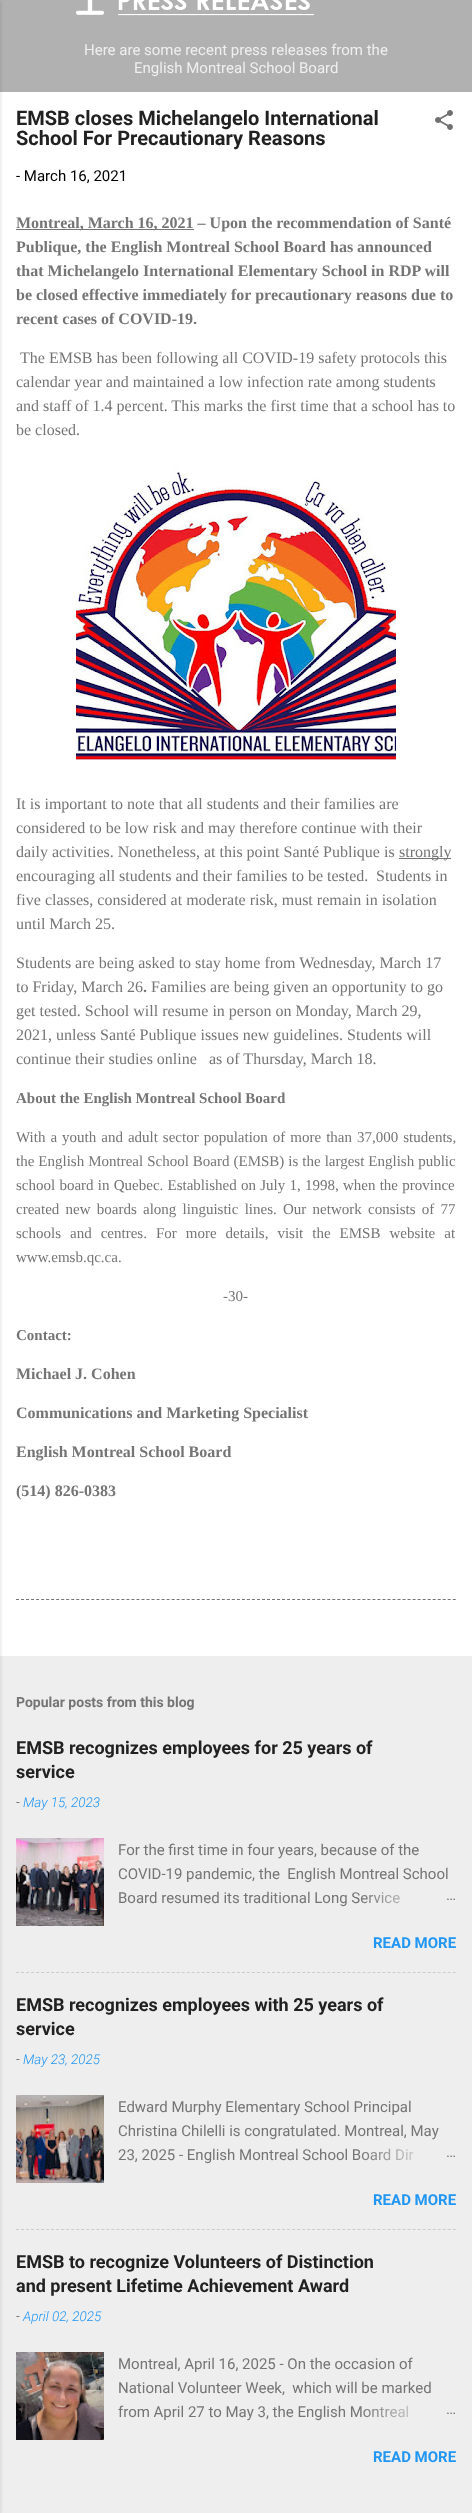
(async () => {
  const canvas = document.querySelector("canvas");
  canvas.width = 472;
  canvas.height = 2513;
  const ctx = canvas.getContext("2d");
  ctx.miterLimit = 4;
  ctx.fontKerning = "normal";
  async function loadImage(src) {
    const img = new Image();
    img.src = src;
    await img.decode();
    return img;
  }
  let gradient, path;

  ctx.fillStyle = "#eeeeee";
  ctx.fillRect(0, 0, 472, 2513);
  ctx.fillStyle = "#b1b1b1";
  ctx.fillRect(0, 0, 472, 92);
  ctx.fillStyle = "#ffffff";
  ctx.fillRect(0, 92, 472, 1564);
  ctx.fillStyle = "rgba(0, 0, 0, 0.1)";
  ctx.filter = "blur(1.5px)";
  ctx.beginPath();
  ctx.rect(-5, 1, 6, 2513);
  ctx.fill();
  ctx.filter = "none";
  ctx.drawImage(await loadImage("img/1.png"), 76, 0, 238, 16);
  ctx.drawImage(await loadImage("img/2.png"), 435, 110, 18, 20);
  ctx.fillStyle = "#757575";
  ctx.fillRect(16, 229, 178, 1);
  ctx.drawImage(await loadImage("img/3.png"), 76, 465, 320, 295);
  ctx.fillRect(399, 858, 52, 1);
  path = new Path2D("M16 1599.5H456");
  ctx.strokeStyle = "#757575";
  ctx.setLineDash([3, 2.02]);
  ctx.stroke(path);
  ctx.drawImage(await loadImage("img/4.png"), 16, 1838, 88, 88);
  path = new Path2D("M16 1972.5H456");
  ctx.strokeStyle = "#cccccc";
  ctx.stroke(path);
  ctx.drawImage(await loadImage("img/5.png"), 16, 2095, 88, 88);
  path = new Path2D("M16 2229.5H456");
  ctx.stroke(path);
  ctx.drawImage(await loadImage("img/6.png"), 16, 2352, 88, 88);
  ctx.font = "15px Roboto";
  ctx.fillStyle = "#efefef";
  ctx.fillText("Here are some recent press releases from the", 84, 55);
  ctx.fillText("English Montreal School Board", 134, 73);
  ctx.font = "bold 20px Roboto";
  ctx.fillStyle = "#212121";
  ctx.fillText("EMSB closes Michelangelo International", 16, 125);
  ctx.fillText("School For Precautionary Reasons", 16, 145);
  ctx.font = "15px Roboto";
  ctx.fillStyle = "#000000";
  ctx.fillText("- March 16, 2021", 16, 181);
  ctx.font = "bold 16px Liberation Serif";
  ctx.fillStyle = "#757575";
  for (const [text, x, y] of [
    ["Montreal, March 16, 2021 – Upon the recommendation of Santé", 16, 228],
    ["Publique, the English Montreal School Board has announced", 16, 252],
    ["that Michelangelo International Elementary School in RDP will", 16, 276],
    ["be closed effective immediately for precautionary reasons due to", 16, 300],
    ["recent cases of COVID-19.", 16, 324],
  ]) {
    ctx.fillText(text, x, y);
  }
  ctx.font = "16px Liberation Serif";
  for (const [text, x, y] of [
    ["The EMSB has been following all COVID-19 safety protocols this", 20, 363],
    ["calendar year and maintained a low infection rate among students", 16, 387],
    ["and staff of 1.4 percent. This marks the first time that a school has to", 16, 411],
    ["be closed.", 16, 435],
    ["It is important to note that all students and their families are", 16, 809],
    ["considered to be low risk and may therefore continue with their", 16, 833],
    ["daily activities. Nonetheless, at this point Santé Publique is", 16, 857],
    ["strongly", 399, 857],
    ["encouraging all students and their families to be tested.", 16, 881],
    ["Students in", 376, 881],
    ["five classes, considered at moderate risk, must remain in isolation", 16, 905],
    ["until March 25.", 16, 929],
    ["Students are being asked to stay home from Wednesday, March 17", 16, 968],
    ["to Friday, March 26", 16, 992],
  ]) {
    ctx.fillText(text, x, y);
  }
  ctx.font = "bold 16px Liberation Serif";
  ctx.fillText(".", 143, 992);
  ctx.font = "16px Liberation Serif";
  for (const [text, x, y] of [
    ["Families are being given an opportunity to go", 151, 992],
    ["get tested. School will resume in person on Monday, March 29,", 16, 1016],
    ["2021, unless Santé Publique issues new guidelines. Students will", 16, 1040],
    ["continue their studies online", 16, 1064],
    ["as of Thursday, March 18.", 209, 1064],
  ]) {
    ctx.fillText(text, x, y);
  }
  ctx.font = "bold 15px Liberation Serif";
  ctx.fillText("About the English Montreal School Board", 16, 1103);
  ctx.wordSpacing = "1.25px";
  ctx.font = "15px Liberation Serif";
  ctx.fillText("With a youth and adult sector population of more than 37,000 students,", 16, 1142);
  ctx.wordSpacing = "0.25px";
  ctx.fillText("the English Montreal School Board (EMSB) is the largest English public", 16, 1166);
  ctx.wordSpacing = "0.5px";
  ctx.fillText("school board in Quebec. Established on July 1, 1998, when the province", 16, 1190);
  ctx.wordSpacing = "2.5px";
  ctx.fillText("created new boards along linguistic lines. Our network consists of 77", 16, 1214);
  ctx.wordSpacing = "5.25px";
  ctx.fillText("schools and centres. For more details, visit the EMSB website at", 16, 1238);
  ctx.wordSpacing = "0px";
  ctx.fillText("www.emsb.qc.ca.", 16, 1262);
  ctx.fillText("-30-", 223, 1301);
  ctx.font = "bold 15px Liberation Serif";
  ctx.fillText("Contact:", 16, 1340);
  ctx.font = "bold 16px Liberation Serif";
  for (const [text, x, y] of [
    ["Michael J. Cohen", 16, 1379],
    ["Communications and Marketing Specialist", 16, 1418],
    ["English Montreal School Board", 16, 1457],
    ["(514) 826-0383", 16, 1496],
  ]) {
    ctx.fillText(text, x, y);
  }
  ctx.font = "bold 14px Roboto";
  ctx.fillText("Popular posts from this blog", 16, 1707);
  ctx.font = "bold 18px Roboto";
  ctx.fillStyle = "#212121";
  ctx.fillText("EMSB recognizes employees for 25 years of", 16, 1754);
  ctx.fillText("service", 16, 1778);
  ctx.font = "italic 300 13.5px Roboto";
  ctx.fillStyle = "#000000";
  ctx.fillText("-", 16, 1807);
  ctx.fillStyle = "#2196f3";
  ctx.fillText("May 15, 2023", 23, 1807);
  ctx.font = "15px Roboto";
  ctx.fillStyle = "#757575";
  for (const [text, x, y] of [
    ["For the first time in four years, because of the", 118, 1855],
    ["COVID-19 pandemic, the  English Montreal School", 118, 1879],
    ["Board resumed its traditional Long Service", 118, 1903],
  ]) {
    ctx.fillText(text, x, y);
  }
  gradient = ctx.createLinearGradient(456, 1898, 360, 1898);
  gradient.addColorStop(0, "#eeeeee");
  gradient.addColorStop(0.2, "#eeeeee");
  gradient.addColorStop(1, "rgba(238, 238, 238, 0)");
  ctx.fillStyle = gradient;
  ctx.fillRect(362, 1892, 38, 12);
  ctx.fillStyle = "#757575";
  ctx.fillText("…", 446, 1900);
  ctx.font = "bold 15px Roboto";
  ctx.fillStyle = "#2196f3";
  ctx.fillText("READ MORE", 373, 1948);
  ctx.font = "bold 18px Roboto";
  ctx.fillStyle = "#212121";
  ctx.fillText("EMSB recognizes employees with 25 years of", 16, 2011);
  ctx.fillText("service", 16, 2035);
  ctx.font = "italic 300 13.5px Roboto";
  ctx.fillStyle = "#000000";
  ctx.fillText("-", 16, 2064);
  ctx.fillStyle = "#2196f3";
  ctx.fillText("May 23, 2025", 23, 2064);
  ctx.font = "15px Roboto";
  ctx.fillStyle = "#757575";
  for (const [text, x, y] of [
    ["Edward Murphy Elementary School Principal", 118, 2112],
    ["Christina Chilelli is congratulated. Montreal, May", 118, 2136],
    ["23, 2025 - English Montreal School Board Dir", 118, 2160],
  ]) {
    ctx.fillText(text, x, y);
  }
  gradient = ctx.createLinearGradient(456, 2155, 360, 2155);
  gradient.addColorStop(0, "#eeeeee");
  gradient.addColorStop(0.2, "#eeeeee");
  gradient.addColorStop(1, "rgba(238, 238, 238, 0)");
  ctx.fillStyle = gradient;
  ctx.fillRect(362, 2148, 52, 13);
  ctx.fillStyle = "#757575";
  ctx.fillText("…", 446, 2157);
  ctx.font = "bold 15px Roboto";
  ctx.fillStyle = "#2196f3";
  ctx.fillText("READ MORE", 373, 2205);
  ctx.font = "bold 18px Roboto";
  ctx.fillStyle = "#212121";
  ctx.fillText("EMSB to recognize Volunteers of Distinction", 16, 2268);
  ctx.fillText("and present Lifetime Achievement Award", 16, 2292);
  ctx.font = "italic 300 13.5px Roboto";
  ctx.fillStyle = "#000000";
  ctx.fillText("-", 16, 2321);
  ctx.fillStyle = "#2196f3";
  ctx.fillText("April 02, 2025", 23, 2321);
  ctx.font = "15px Roboto";
  ctx.fillStyle = "#757575";
  for (const [text, x, y] of [
    ["Montreal, April 16, 2025 - On the occasion of", 118, 2369],
    ["National Volunteer Week,  which will be marked", 118, 2393],
    ["from April 27 to May 3, the English Montreal", 118, 2417],
  ]) {
    ctx.fillText(text, x, y);
  }
  gradient = ctx.createLinearGradient(456, 2412, 360, 2412);
  gradient.addColorStop(0, "#eeeeee");
  gradient.addColorStop(0.2, "#eeeeee");
  gradient.addColorStop(1, "rgba(238, 238, 238, 0)");
  ctx.fillStyle = gradient;
  ctx.fillRect(364, 2405, 45, 13);
  ctx.fillStyle = "#757575";
  ctx.fillText("…", 446, 2414);
  ctx.font = "bold 15px Roboto";
  ctx.fillStyle = "#2196f3";
  ctx.fillText("READ MORE", 373, 2462);
})();
